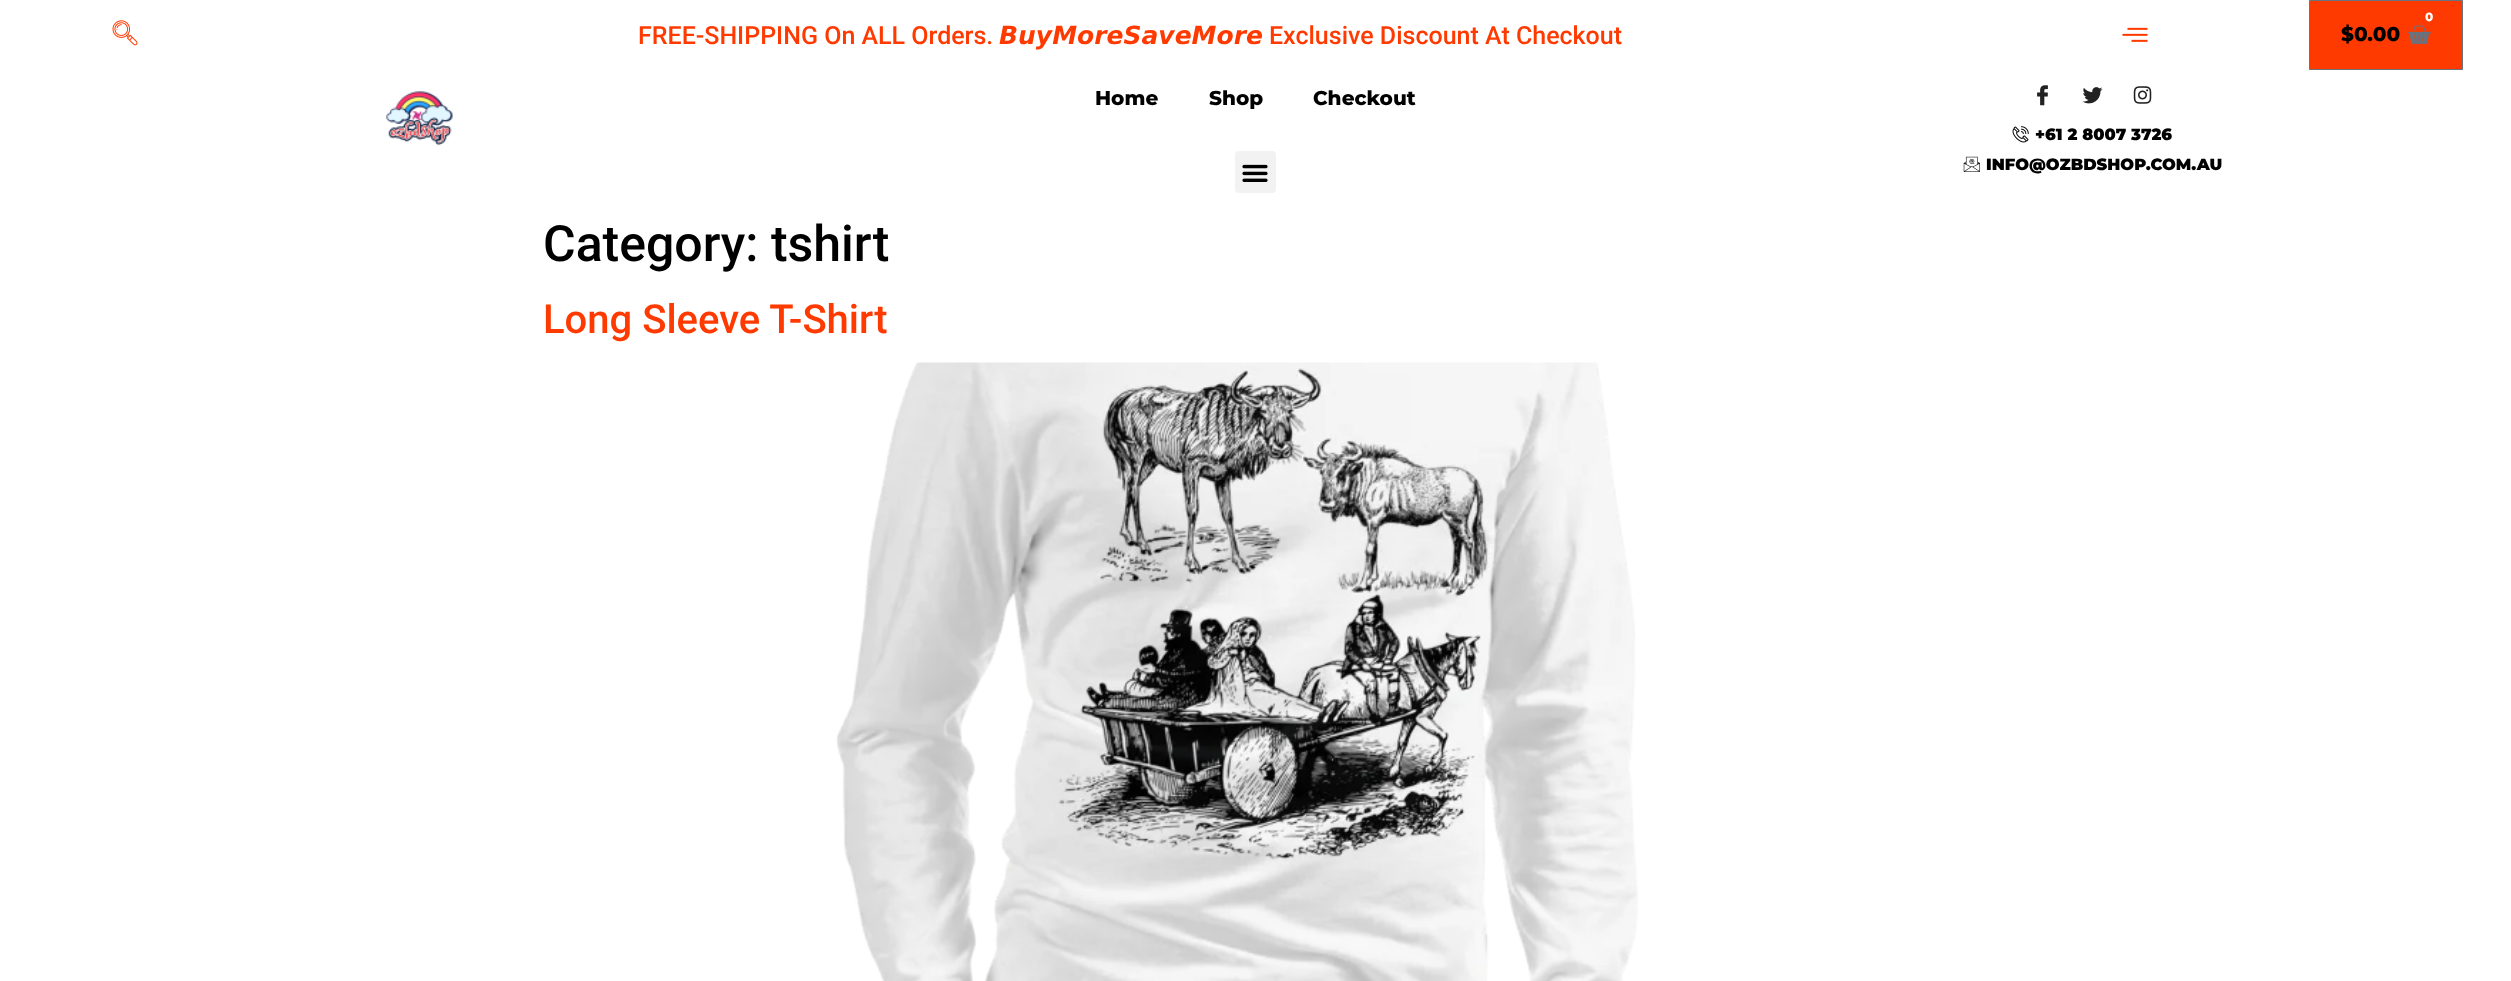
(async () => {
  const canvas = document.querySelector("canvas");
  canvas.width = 2511;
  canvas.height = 981;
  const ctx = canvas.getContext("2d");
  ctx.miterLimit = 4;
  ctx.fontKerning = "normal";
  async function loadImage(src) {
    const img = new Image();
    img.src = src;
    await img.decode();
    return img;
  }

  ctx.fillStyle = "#ffffff";
  ctx.fillRect(0, 0, 2511, 981);
  ctx.drawImage(await loadImage("img/1.png"), 112, 20, 26, 26);
  ctx.drawImage(await loadImage("img/2.png"), 2122, 27, 26, 15);
  ctx.fillStyle = "#ff3a00";
  ctx.beginPath();
  ctx.rect(2309.5, 0.5, 153, 69);
  ctx.fill();
  ctx.strokeStyle = "#69727d";
  ctx.stroke();
  ctx.drawImage(await loadImage("img/3.png"), 2407, 25, 25, 19);
  ctx.beginPath();
  ctx.arc(2430, 18, 10, 0, Math.PI * 2);
  ctx.fill();
  ctx.drawImage(await loadImage("img/4.png"), 386, 91, 67, 55);
  ctx.fillStyle = "#f2f2f2";
  ctx.beginPath();
  ctx.roundRect(1235, 151, 41, 42, 4);
  ctx.fill();
  ctx.drawImage(await loadImage("img/5.png"), 1242, 164, 26, 18);
  ctx.drawImage(await loadImage("img/6.png"), 2037, 85, 11, 21);
  ctx.drawImage(await loadImage("img/7.png"), 2082, 87, 21, 17);
  ctx.drawImage(await loadImage("img/8.png"), 2133, 86, 19, 18);
  ctx.drawImage(await loadImage("img/9.png"), 2012, 126, 17, 17);
  ctx.drawImage(await loadImage("img/10.png"), 1963, 156, 17, 16);
  ctx.drawImage(await loadImage("img/11.png"), 836, 362, 802, 619);
  ctx.font = "500 25px Roboto";
  ctx.fillStyle = "#ff3a00";
  ctx.fillText("FREE-SHIPPING On ALL Orders.", 638, 44);
  ctx.font = "italic bold 25px DejaVu Sans";
  ctx.fillText("𝘽𝙪𝙮𝙈𝙤𝙧𝙚𝙎𝙖𝙫𝙚𝙈𝙤𝙧𝙚", 999, 44);
  ctx.font = "500 25px Roboto";
  ctx.fillText("Exclusive Discount At Checkout", 1269, 44);
  ctx.font = "800 12px Montserrat";
  ctx.fillStyle = "#ffffff";
  ctx.fillText("0", 2425, 21);
  ctx.font = "800 20px Montserrat";
  ctx.fillStyle = "#000000";
  for (const [text, x, y] of [
    ["$0.00", 2341, 41],
    ["Home", 1095, 105],
    ["Shop", 1209, 105],
    ["Checkout", 1313, 105],
  ]) {
    ctx.fillText(text, x, y);
  }
  ctx.font = "900 16.25px Montserrat";
  ctx.fillText("+61 2 8007 3726", 2035, 140);
  ctx.fillText("INFO@OZBDSHOP.COM.AU", 1986, 170);
  ctx.font = "500 50px Roboto";
  ctx.fillText("Category: tshirt", 543, 261);
  ctx.font = "500 40px Roboto";
  ctx.fillStyle = "#ff3a00";
  ctx.fillText("Long Sleeve T-Shirt", 543, 333);
})();
